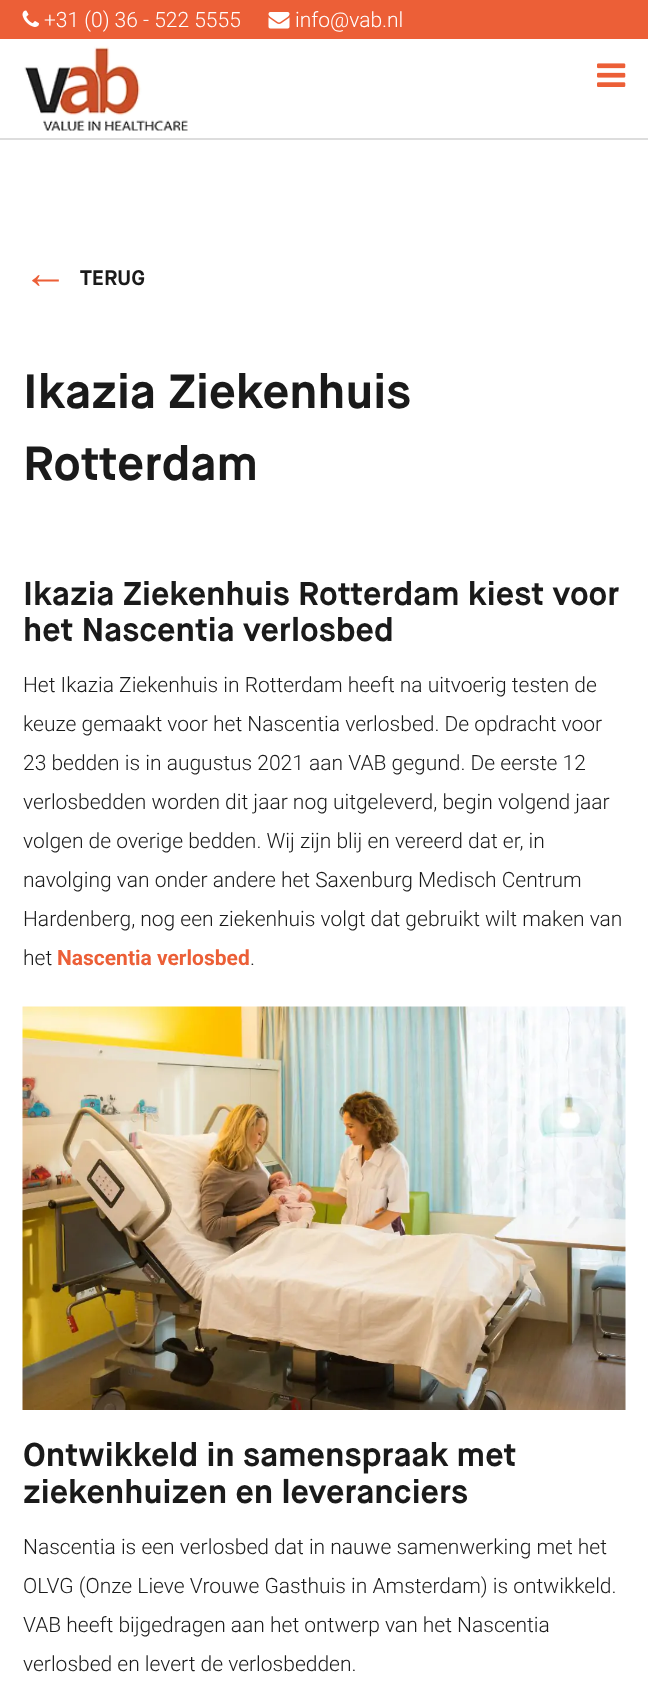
(async () => {
  const canvas = document.querySelector("canvas");
  canvas.width = 648;
  canvas.height = 1685;
  const ctx = canvas.getContext("2d");
  ctx.miterLimit = 4;
  ctx.fontKerning = "normal";
  async function loadImage(src) {
    const img = new Image();
    img.src = src;
    await img.decode();
    return img;
  }

  ctx.fillStyle = "#ffffff";
  ctx.fillRect(0, 0, 648, 1685);
  ctx.fillStyle = "#ec5f37";
  ctx.fillRect(0, 0, 648, 39);
  ctx.drawImage(await loadImage("img/1.png"), 22, 10, 17, 17);
  ctx.drawImage(await loadImage("img/2.png"), 268, 12, 22, 17);
  ctx.fillStyle = "#dddddd";
  ctx.fillRect(0, 138, 648, 2);
  ctx.drawImage(await loadImage("img/3.png"), 24, 46, 164, 85);
  ctx.drawImage(await loadImage("img/4.png"), 597, 63, 29, 24);
  ctx.drawImage(await loadImage("img/5.png"), 22, 1006, 604, 404);
  ctx.font = "300 21px Roboto";
  ctx.fillStyle = "#ffffff";
  ctx.fillText("+31 (0) 36 - 522 5555", 44, 27);
  ctx.fillText("info@vab.nl", 295, 27);
  ctx.font = "45px Liberation Sans";
  ctx.fillStyle = "#ec5f37";
  ctx.fillText("←", 23, 288);
  ctx.font = "bold 21px Maison Neue";
  ctx.fillStyle = "#1a1a1a";
  ctx.fillText("TERUG", 80, 285);
  ctx.font = "bold 48px Maison Neue";
  ctx.fillText("Ikazia Ziekenhuis", 23, 408);
  ctx.fillText("Rotterdam", 23, 480);
  ctx.font = "bold 33px Maison Neue";
  ctx.fillText("Ikazia Ziekenhuis Rotterdam kiest voor", 23, 605);
  ctx.fillText("het Nascentia verlosbed", 23, 641);
  ctx.font = "300 21px Roboto";
  for (const [text, x, y] of [
    ["Het Ikazia Ziekenhuis in Rotterdam heeft na uitvoerig testen de", 23, 692],
    ["keuze gemaakt voor het Nascentia verlosbed. De opdracht voor", 23, 731],
    ["23 bedden is in augustus 2021 aan VAB gegund. De eerste 12", 23, 770],
    ["verlosbedden worden dit jaar nog uitgeleverd, begin volgend jaar", 23, 809],
    ["volgen de overige bedden. Wij zijn blij en vereerd dat er, in", 23, 848],
    ["navolging van onder andere het Saxenburg Medisch Centrum", 23, 887],
    ["Hardenberg, nog een ziekenhuis volgt dat gebruikt wilt maken van", 23, 926],
    ["het", 23, 965],
  ]) {
    ctx.fillText(text, x, y);
  }
  ctx.font = "bold 21px Roboto";
  ctx.fillStyle = "#ec5f37";
  ctx.fillText("Nascentia verlosbed", 57, 965);
  ctx.font = "300 21px Roboto";
  ctx.fillStyle = "#1a1a1a";
  ctx.fillText(".", 250, 965);
  ctx.font = "bold 33px Maison Neue";
  ctx.fillText("Ontwikkeld in samenspraak met", 23, 1466);
  ctx.fillText("ziekenhuizen en leveranciers", 23, 1503);
  ctx.font = "300 21px Roboto";
  for (const [text, x, y] of [
    ["Nascentia is een verlosbed dat in nauwe samenwerking met het", 23, 1554],
    ["OLVG (Onze Lieve Vrouwe Gasthuis in Amsterdam) is ontwikkeld.", 23, 1593],
    ["VAB heeft bijgedragen aan het ontwerp van het Nascentia", 23, 1632],
    ["verlosbed en levert de verlosbedden.", 23, 1671],
  ]) {
    ctx.fillText(text, x, y);
  }
})();
